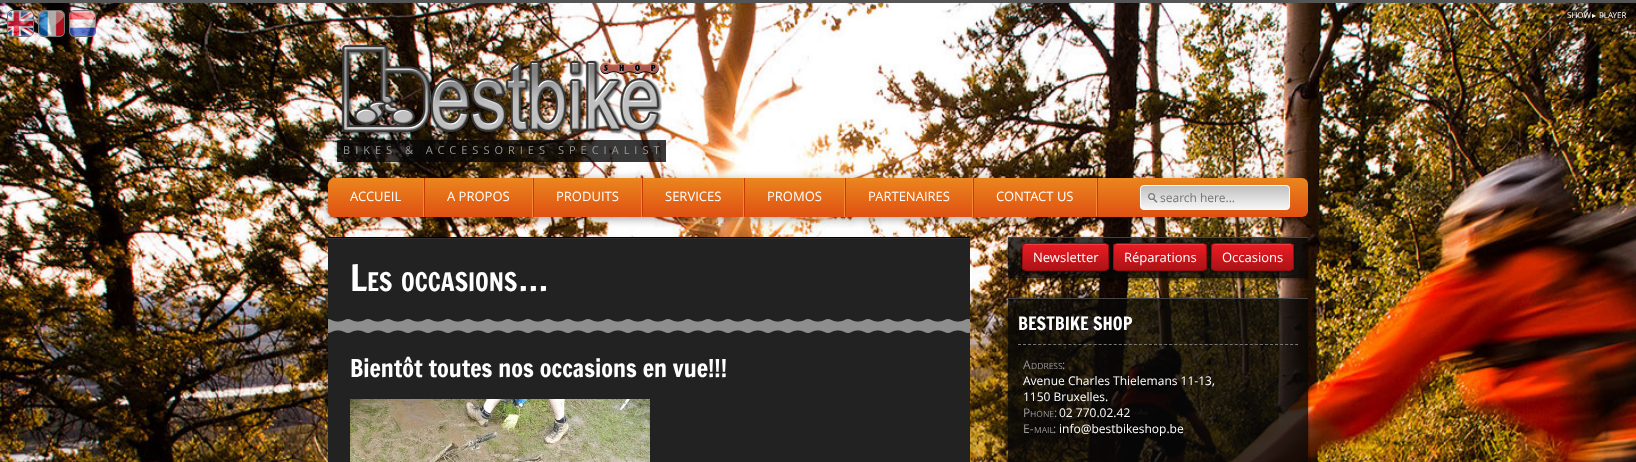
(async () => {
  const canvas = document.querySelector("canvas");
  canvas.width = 1636;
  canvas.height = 462;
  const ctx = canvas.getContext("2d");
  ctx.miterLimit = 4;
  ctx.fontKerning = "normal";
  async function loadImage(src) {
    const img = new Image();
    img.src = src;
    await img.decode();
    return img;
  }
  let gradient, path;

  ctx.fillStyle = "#ffffff";
  ctx.fillRect(0, 0, 1636, 462);
  ctx.drawImage(await loadImage("img/1.png"), 0, 3, 1636, 459);
  ctx.fillStyle = "#555555";
  ctx.fillRect(0, 0, 1636, 3);
  ctx.beginPath();
  ctx.roundRect(7.5, 10.5, 26, 26, 4.5);
  ctx.strokeStyle = "#777777";
  ctx.stroke();
  ctx.drawImage(await loadImage("img/2.png"), 8, 11, 25, 25);
  ctx.beginPath();
  ctx.roundRect(38.5, 10.5, 26, 26, 4.5);
  ctx.stroke();
  ctx.drawImage(await loadImage("img/3.png"), 39, 11, 25, 25);
  ctx.beginPath();
  ctx.roundRect(69.5, 10.5, 26, 26, 4.5);
  ctx.stroke();
  ctx.drawImage(await loadImage("img/4.png"), 70, 11, 25, 25);
  ctx.drawImage(await loadImage("img/5.png"), 341, 44, 321, 92);
  ctx.fillStyle = "rgba(8, 8, 8, 0.8)";
  ctx.fillRect(337, 140, 329, 22);
  ctx.fillStyle = "rgba(0, 0, 0, 0.35)";
  ctx.filter = "blur(5px)";
  ctx.beginPath();
  ctx.roundRect(328, 180, 980, 39, 6);
  ctx.fill();
  ctx.filter = "none";
  gradient = ctx.createLinearGradient(818, 178, 818, 217);
  gradient.addColorStop(0, "#eb861e");
  gradient.addColorStop(1, "#df5012");
  ctx.fillStyle = gradient;
  ctx.beginPath();
  ctx.roundRect(328, 178, 980, 39, 6);
  ctx.fill();
  ctx.fillStyle = "#f58837";
  ctx.fillRect(423, 178, 1, 39);
  ctx.fillRect(532, 178, 1, 39);
  ctx.fillStyle = "#c83b02";
  path = new Path2D("M424 217V178H425V216Z");
  ctx.fill(path);
  ctx.fillStyle = "#f58837";
  ctx.fillRect(641, 178, 1, 39);
  ctx.fillStyle = "#c83b02";
  path = new Path2D("M533 217V178H534V216Z");
  ctx.fill(path);
  ctx.fillStyle = "#f58837";
  ctx.fillRect(743, 178, 1, 39);
  ctx.fillStyle = "#c83b02";
  path = new Path2D("M642 217V178H643V216Z");
  ctx.fill(path);
  ctx.fillStyle = "#f58837";
  ctx.fillRect(844, 178, 1, 39);
  ctx.fillStyle = "#c83b02";
  path = new Path2D("M744 217V178H745V216Z");
  ctx.fill(path);
  ctx.fillStyle = "#f58837";
  ctx.fillRect(972, 178, 1, 39);
  ctx.fillStyle = "#c83b02";
  path = new Path2D("M845 217V178H846V216Z");
  ctx.fill(path);
  ctx.fillRect(1097, 178, 1, 39);
  ctx.fillStyle = "#f58837";
  path = new Path2D("M1097 178V217L1096 216V178Z");
  ctx.fill(path);
  ctx.fillStyle = "#c83b02";
  path = new Path2D("M973 217V178H974V216Z");
  ctx.fill(path);
  ctx.drawImage(await loadImage("img/6.png"), 1140, 185, 150, 25);
  ctx.fillStyle = "#222222";
  ctx.fillRect(328, 239, 642, 223);
  ctx.drawImage(await loadImage("img/7.png"), 328, 237, 642, 2);
  ctx.drawImage(await loadImage("img/8.png"), 328, 319, 642, 14);
  ctx.drawImage(await loadImage("img/9.png"), 350, 399, 300, 63);
  ctx.save();
  path = new Path2D("M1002 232H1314V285H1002ZM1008 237H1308V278H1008Z");
  ctx.clip(path, "evenodd");
  ctx.fillStyle = "rgba(0, 0, 0, 0.5)";
  ctx.filter = "blur(1.5px)";
  ctx.beginPath();
  ctx.rect(1008, 238, 300, 41);
  ctx.fill();
  ctx.filter = "none";
  ctx.restore();
  ctx.fillStyle = "rgba(8, 8, 8, 0.8)";
  ctx.fillRect(1008, 238, 300, 40);
  ctx.fillStyle = "#444444";
  ctx.fillRect(1008, 237, 300, 1);
  ctx.fillStyle = "rgba(0, 0, 0, 0.5)";
  ctx.filter = "blur(1px)";
  ctx.beginPath();
  ctx.roundRect(1022, 244, 87, 28, 4);
  ctx.fill();
  ctx.filter = "none";
  ctx.save();
  ctx.beginPath();
  ctx.roundRect(1022, 243, 87, 28, 4);
  ctx.clip();
  gradient = ctx.createLinearGradient(1066, 244, 1066, 270);
  gradient.addColorStop(0, "#ed1c24");
  gradient.addColorStop(1, "#aa1317");
  ctx.fillStyle = gradient;
  ctx.fillRect(1022, 244, 87, 26);
  ctx.restore();
  ctx.fillStyle = "rgba(255, 255, 255, 0.15)";
  path = new Path2D("M1026 245H1105C1107 245 1108 246 1108 248C1108 241 1096 244 1092 244H1039C1035 244 1023 241 1023 248C1023 246 1024 245 1026 245Z");
  ctx.fill(path);
  ctx.beginPath();
  ctx.roundRect(1022.5, 243.5, 86, 27, 3.5);
  ctx.strokeStyle = "#980c10";
  ctx.stroke();
  ctx.fillStyle = "rgba(0, 0, 0, 0.5)";
  ctx.filter = "blur(1px)";
  ctx.beginPath();
  ctx.roundRect(1113, 244, 94, 28, 4);
  ctx.fill();
  ctx.filter = "none";
  ctx.save();
  ctx.beginPath();
  ctx.roundRect(1113, 243, 94, 28, 4);
  ctx.clip();
  gradient = ctx.createLinearGradient(1160, 244, 1160, 270);
  gradient.addColorStop(0, "#ed1c24");
  gradient.addColorStop(1, "#aa1317");
  ctx.fillStyle = gradient;
  ctx.fillRect(1113, 244, 94, 26);
  ctx.restore();
  ctx.fillStyle = "rgba(255, 255, 255, 0.15)";
  path = new Path2D("M1117 245H1203C1205 245 1206 246 1206 248C1206 240 1192 244 1189 244H1131C1128 244 1114 240 1114 248C1114 246 1115 245 1117 245Z");
  ctx.fill(path);
  ctx.beginPath();
  ctx.roundRect(1113.5, 243.5, 93, 27, 3.5);
  ctx.stroke();
  ctx.fillStyle = "rgba(0, 0, 0, 0.5)";
  ctx.filter = "blur(1px)";
  ctx.beginPath();
  ctx.roundRect(1211, 244, 83, 28, 4);
  ctx.fill();
  ctx.filter = "none";
  ctx.save();
  ctx.beginPath();
  ctx.roundRect(1211, 243, 83, 28, 4);
  ctx.clip();
  gradient = ctx.createLinearGradient(1253, 244, 1253, 270);
  gradient.addColorStop(0, "#ed1c24");
  gradient.addColorStop(1, "#aa1317");
  ctx.fillStyle = gradient;
  ctx.fillRect(1211, 244, 83, 26);
  ctx.restore();
  ctx.fillStyle = "rgba(255, 255, 255, 0.15)";
  path = new Path2D("M1215 245H1290C1292 245 1293 246 1293 248C1293 241 1281 244 1278 244H1228C1224 244 1212 241 1212 248C1212 246 1213 245 1215 245Z");
  ctx.fill(path);
  ctx.beginPath();
  ctx.roundRect(1211.5, 243.5, 82, 27, 3.5);
  ctx.stroke();
  ctx.save();
  path = new Path2D("M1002 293H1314V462H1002ZM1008 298H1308V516H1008Z");
  ctx.clip(path, "evenodd");
  ctx.fillStyle = "rgba(0, 0, 0, 0.5)";
  ctx.filter = "blur(1.5px)";
  ctx.beginPath();
  ctx.rect(1008, 299, 300, 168);
  ctx.fill();
  ctx.filter = "none";
  ctx.restore();
  ctx.fillStyle = "rgba(8, 8, 8, 0.8)";
  ctx.fillRect(1008, 299, 300, 163);
  ctx.fillStyle = "#444444";
  ctx.fillRect(1008, 298, 300, 1);
  path = new Path2D("M1018 344.5H1298");
  ctx.strokeStyle = "#787878";
  ctx.setLineDash([3, 2.04]);
  ctx.stroke(path);
  ctx.font = "8px Open Sans";
  ctx.fillStyle = "#ffffff";
  ctx.fillText("SHOW", 1567, 18);
  ctx.font = "8px DejaVu Sans";
  ctx.fillText("▸", 1592, 18);
  ctx.font = "8px Open Sans";
  ctx.fillText("PLAYER", 1599, 18);
  ctx.letterSpacing = "5px";
  ctx.font = "11px Open Sans";
  ctx.fillStyle = "#999999";
  ctx.fillText("BIKES & ACCESSORIES SPECIALIST", 343, 154);
  ctx.letterSpacing = "0px";
  ctx.font = "13px Open Sans";
  ctx.fillStyle = "#ffffff";
  for (const [text, x, y] of [
    ["ACCUEIL", 350, 201],
    ["A PROPOS", 447, 201],
    ["PRODUITS", 556, 201],
    ["SERVICES", 665, 201],
    ["PROMOS", 767, 201],
    ["PARTENAIRES", 868, 201],
    ["CONTACT US", 996, 201],
  ]) {
    ctx.fillText(text, x, y);
  }
  ctx.font = "12px Open Sans";
  ctx.fillStyle = "#757575";
  ctx.fillText("search here...", 1160, 202);
  ctx.font = "36px Francois One";
  ctx.fillStyle = "#ffffff";
  ctx.fillText("L", 350, 291);
  ctx.font = "25px Francois One";
  ctx.fillText("ES", 367, 291);
  ctx.fillText("OCCASIONS", 401, 291);
  ctx.font = "36px Francois One";
  ctx.fillText("…", 519, 291);
  ctx.font = "24px Francois One";
  ctx.fillText("Bientôt toutes nos occasions en vue!!!", 350, 377);
  ctx.font = "13px Open Sans";
  for (const [text, x, y] of [
    ["Newsletter", 1033, 262],
    ["Réparations", 1124, 262],
    ["Occasions", 1222, 262],
  ]) {
    ctx.fillText(text, x, y);
  }
  ctx.font = "18px Francois One";
  ctx.fillText("BESTBIKE SHOP", 1018, 330);
  ctx.font = "12px Open Sans";
  ctx.fillStyle = "#999999";
  ctx.fillText("A", 1023, 369);
  ctx.font = "8.5px Open Sans";
  ctx.fillText("DDRESS", 1031, 369);
  ctx.font = "12px Open Sans";
  ctx.fillText(":", 1062, 369);
  ctx.fillStyle = "#ffffff";
  ctx.fillText("Avenue Charles Thielemans 11-13,", 1023, 385);
  ctx.fillText("1150 Bruxelles.", 1023, 401);
  ctx.fillStyle = "#999999";
  ctx.fillText("P", 1023, 417);
  ctx.font = "8.5px Open Sans";
  ctx.fillText("HONE", 1030, 417);
  ctx.font = "12px Open Sans";
  ctx.fillText(":", 1054, 417);
  ctx.fillStyle = "#ffffff";
  ctx.fillText("02 770.02.42", 1059, 417);
  ctx.fillStyle = "#999999";
  ctx.fillText("E-", 1023, 433);
  ctx.font = "8.5px Open Sans";
  ctx.fillText("MAIL", 1034, 433);
  ctx.font = "12px Open Sans";
  ctx.fillText(":", 1053, 433);
  ctx.fillStyle = "#ffffff";
  ctx.fillText("info@bestbikeshop.be", 1059, 433);
})();
